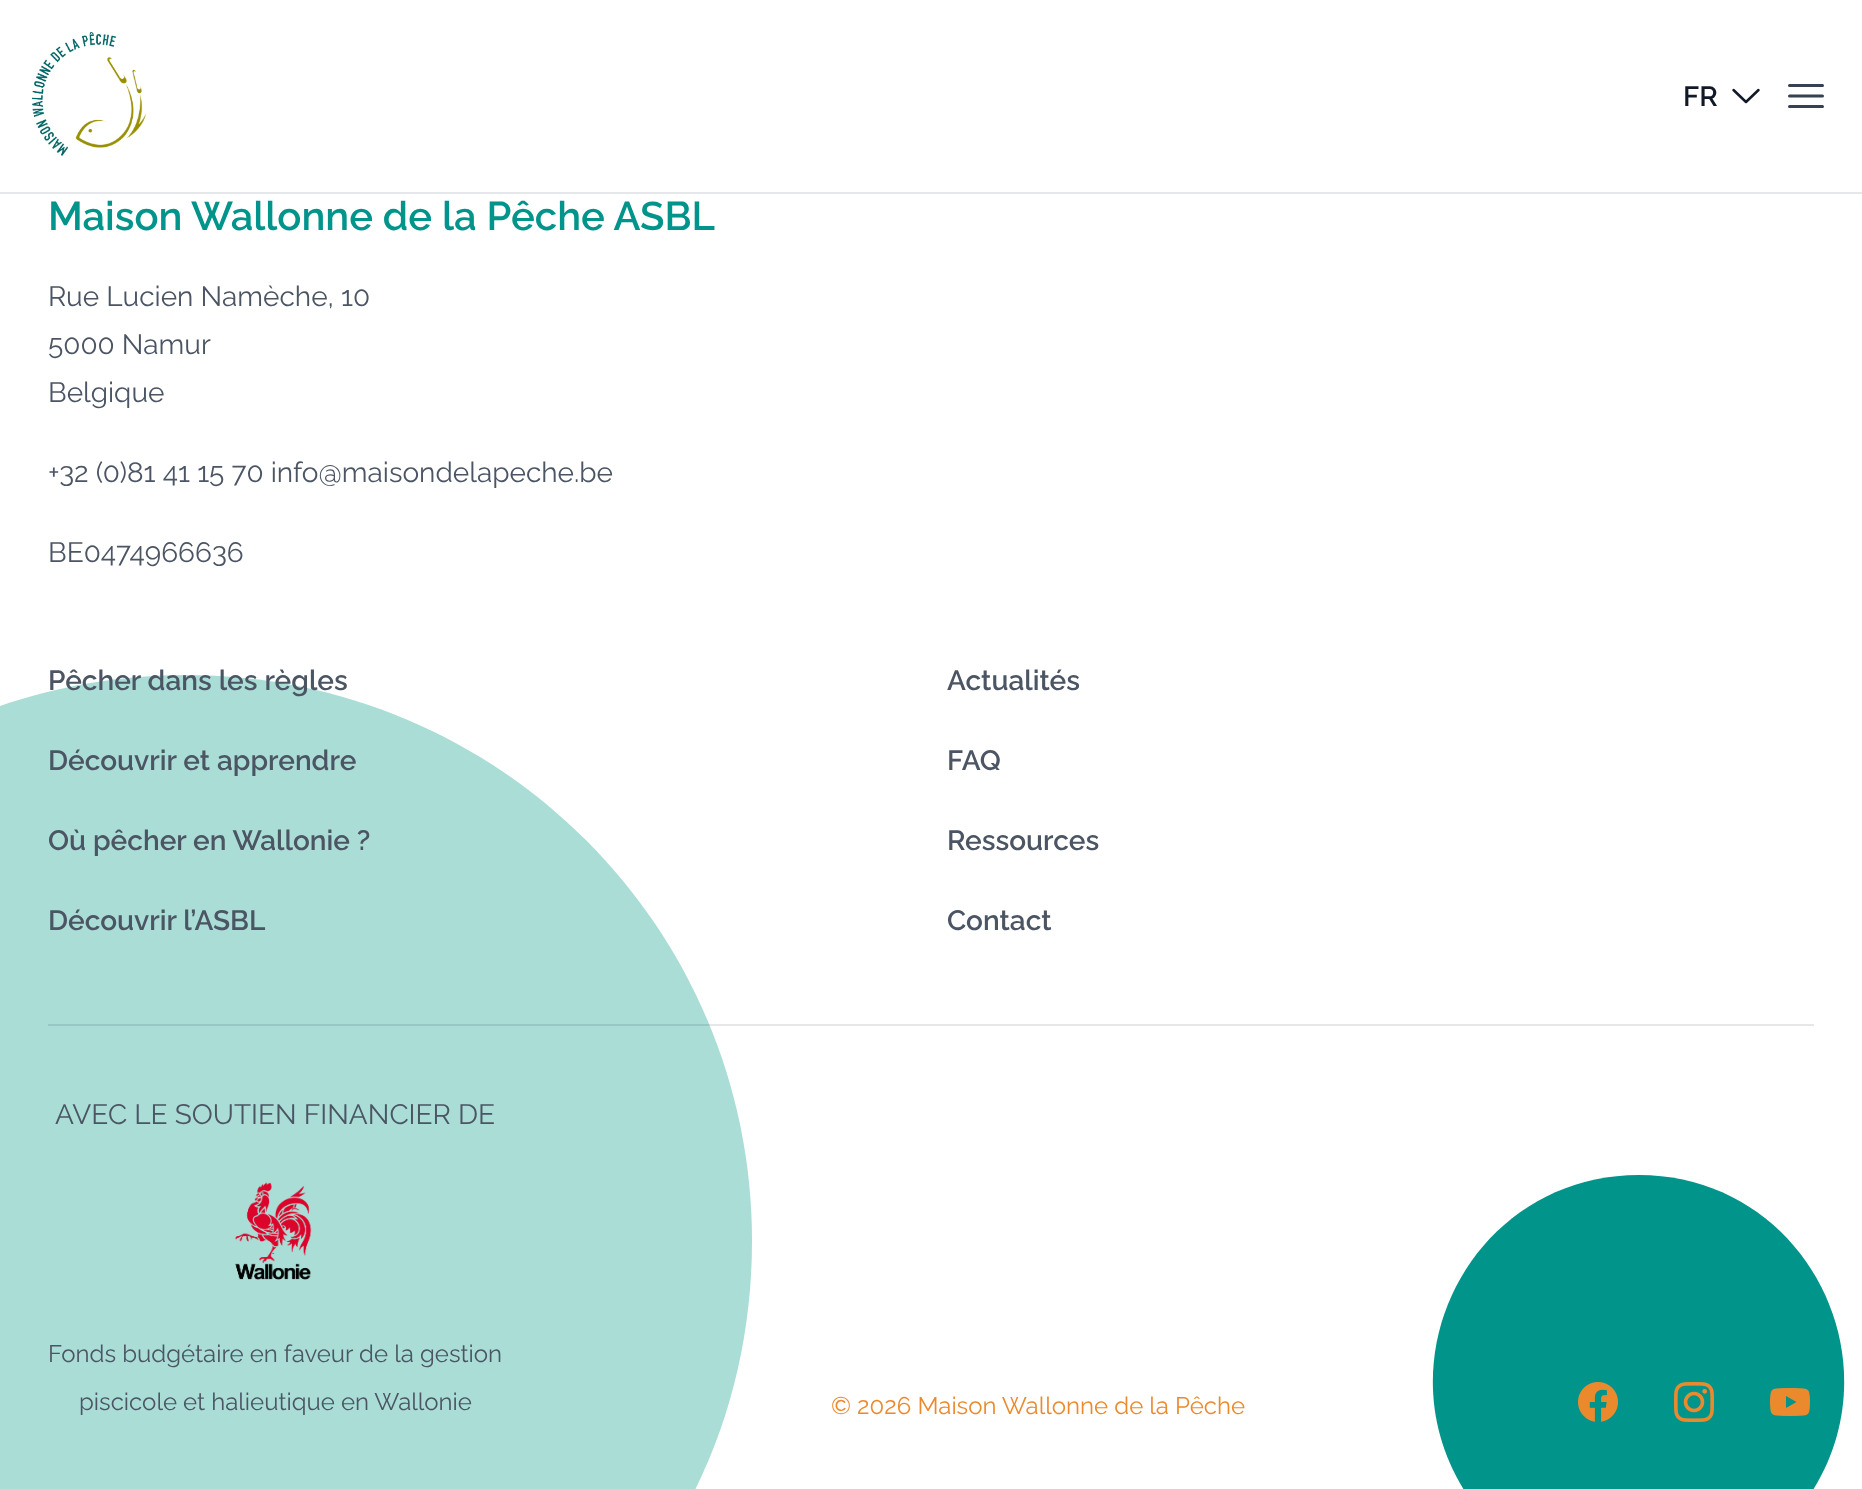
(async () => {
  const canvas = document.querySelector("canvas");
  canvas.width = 1862;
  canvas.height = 1489;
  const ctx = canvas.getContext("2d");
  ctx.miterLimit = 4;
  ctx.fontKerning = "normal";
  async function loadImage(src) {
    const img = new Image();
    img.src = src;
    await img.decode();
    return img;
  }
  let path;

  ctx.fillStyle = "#ffffff";
  ctx.fillRect(0, 0, 1862, 1489);
  ctx.fillStyle = "#e5e7eb";
  ctx.fillRect(0, 192, 1862, 2);
  ctx.drawImage(await loadImage("img/1.png"), 32, 32, 114, 124);
  path = new Path2D("M1758.5 90L1746 102L1733.5 90");
  ctx.strokeStyle = "#111827";
  ctx.lineWidth = 2.5;
  ctx.lineCap = "round";
  ctx.lineJoin = "round";
  ctx.stroke(path);
  path = new Path2D("M1789.5 85.5H1822.5M1789.5 96H1822.5M1789.5 106.5H1822.5");
  ctx.strokeStyle = "#374151";
  ctx.lineWidth = 3;
  ctx.stroke(path);
  ctx.fillStyle = "#a9ddd6";
  path = new Path2D("M186 675C499 675 752 928 752 1241C752 1330 732 1415 695 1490H0V706C58 686 121 675 186 675Z");
  ctx.fill(path);
  ctx.fillStyle = "rgba(17, 24, 39, 0.1)";
  ctx.fillRect(48, 1024, 1766, 2);
  ctx.drawImage(await loadImage("img/2.png"), 235, 1182, 77, 98);
  ctx.fillStyle = "#00948b";
  path = new Path2D("M1639 1175C1802 1175 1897 1355 1813 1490H1464C1380 1355 1475 1175 1639 1175Z");
  ctx.fill(path);
  ctx.drawImage(await loadImage("img/3.png"), 1578, 1382, 40, 40);
  ctx.drawImage(await loadImage("img/4.png"), 1674, 1382, 40, 40);
  ctx.drawImage(await loadImage("img/5.png"), 1770, 1388, 40, 28);
  ctx.font = "600 28px Raleway";
  ctx.fillStyle = "#111827";
  ctx.fillText("FR", 1683, 106);
  ctx.font = "600 40px Raleway";
  ctx.fillStyle = "#00948b";
  ctx.fillText("Maison Wallonne de la Pêche ASBL", 48, 230);
  ctx.font = "28px Raleway";
  ctx.fillStyle = "#4b5563";
  for (const [text, x, y] of [
    ["Rue Lucien Namèche, 10", 48, 306],
    ["5000 Namur", 48, 354],
    ["Belgique", 48, 402],
    ["+32 (0)81 41 15 70 info@maisondelapeche.be", 48, 482],
    ["BE0474966636", 48, 562],
  ]) {
    ctx.fillText(text, x, y);
  }
  ctx.font = "600 28px Raleway";
  for (const [text, x, y] of [
    ["Pêcher dans les règles", 48, 690],
    ["Découvrir et apprendre", 48, 770],
    ["Où pêcher en Wallonie ?", 48, 850],
    ["Découvrir l’ASBL", 48, 930],
    ["Actualités", 947, 690],
    ["FAQ", 947, 770],
    ["Ressources", 947, 850],
    ["Contact", 947, 930],
  ]) {
    ctx.fillText(text, x, y);
  }
  ctx.font = "28px Raleway";
  ctx.fillText("AVEC LE SOUTIEN FINANCIER DE", 55, 1124);
  ctx.font = "24px Raleway";
  ctx.fillText("Fonds budgétaire en faveur de la gestion", 48, 1362);
  ctx.fillText("piscicole et halieutique en Wallonie", 79, 1410);
  ctx.fillStyle = "#eb8a2d";
  ctx.fillText("© 2026 Maison Wallonne de la Pêche", 831, 1414);
})();
